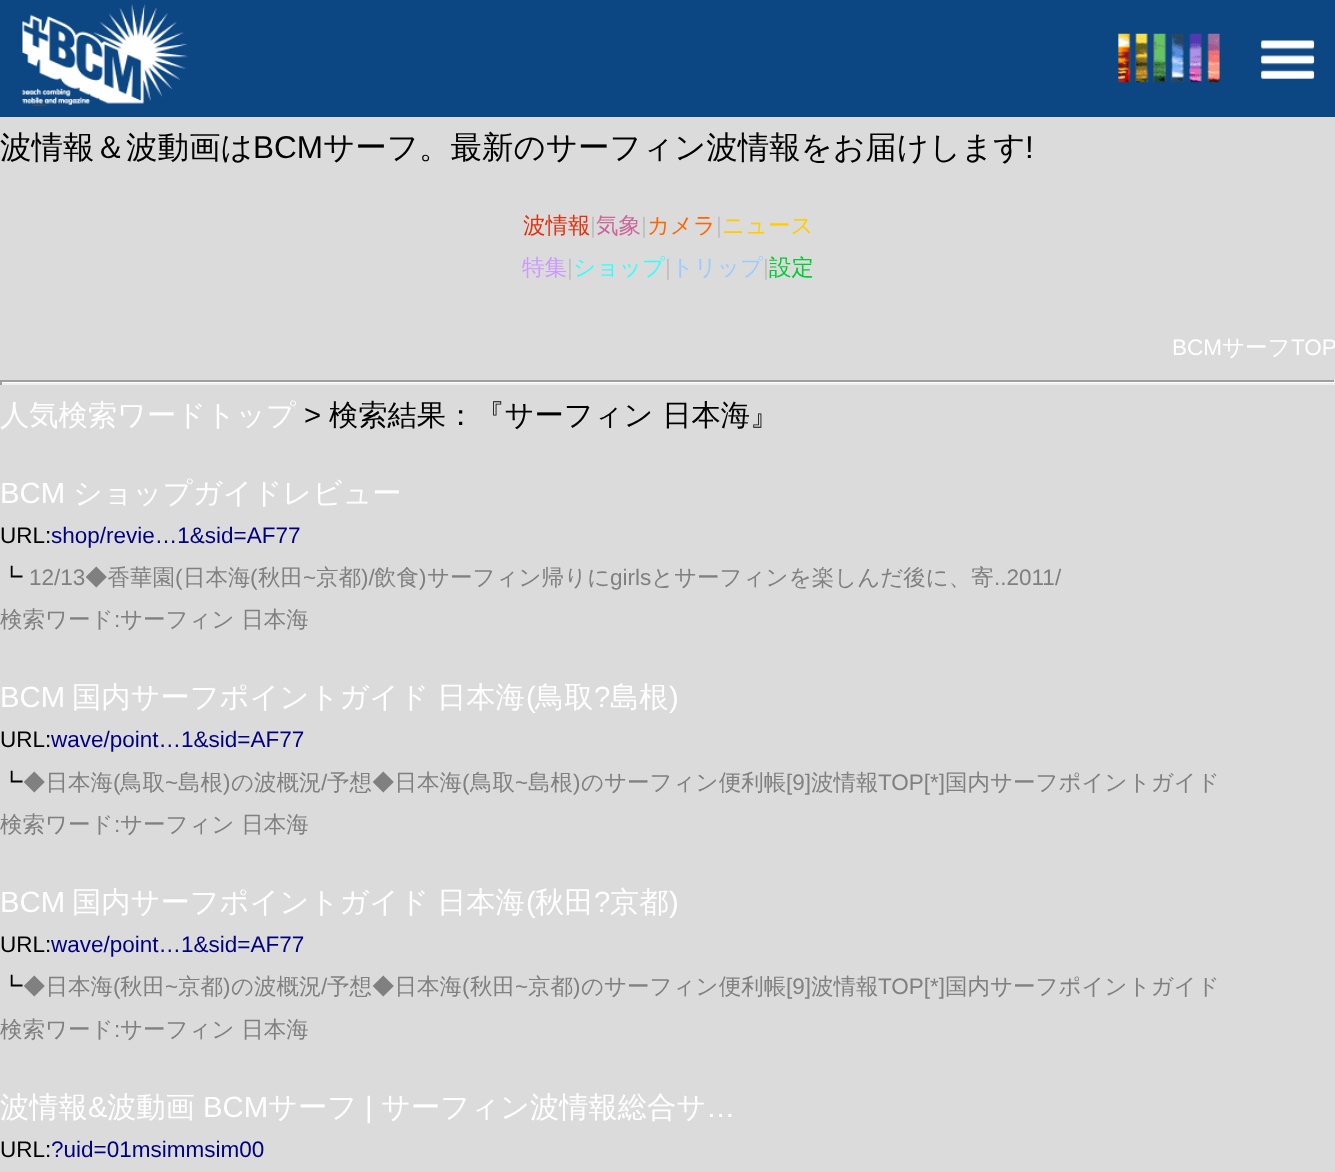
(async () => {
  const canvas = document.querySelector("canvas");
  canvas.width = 1335;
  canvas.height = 1172;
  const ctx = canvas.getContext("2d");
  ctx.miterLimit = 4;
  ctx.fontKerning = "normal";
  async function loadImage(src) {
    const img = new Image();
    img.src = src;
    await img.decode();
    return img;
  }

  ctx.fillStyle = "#dbdbdb";
  ctx.fillRect(0, 0, 1335, 1172);
  ctx.fillStyle = "#0d4783";
  ctx.fillRect(0, 0, 1335, 117);
  ctx.drawImage(await loadImage("img/1.png"), 22, 4, 166, 102);
  ctx.drawImage(await loadImage("img/2.png"), 1118, 33, 102, 50);
  ctx.drawImage(await loadImage("img/3.png"), 1261, 40, 54, 39);
  for (const [x, y, w, h, color] of [
    [0, 382, 1335, 1, "#ffffff"],
    [0, 380, 1335, 2, "#9f9f9f"],
    [1334, 380, 1, 5, "#eeeeee"],
    [0, 383, 1335, 2, "#eeeeee"],
    [0, 380, 2, 5, "#9f9f9f"],
  ]) {
    ctx.fillStyle = color;
    ctx.fillRect(x, y, w, h);
  }
  ctx.font = "500 31.5px WenQuanYi Zen Hei";
  ctx.fillStyle = "#000000";
  ctx.fillText("波情報＆波動画は", 0, 158);
  ctx.font = "31.5px Liberation Sans";
  ctx.fillText("BCM", 253, 158);
  ctx.font = "500 31.5px WenQuanYi Zen Hei";
  ctx.fillText("サーフ。最新のサーフィン波情報をお届けします", 323, 158);
  ctx.font = "31.5px Liberation Sans";
  ctx.fillText("!", 1025, 158);
  ctx.font = "500 22.5px WenQuanYi Zen Hei";
  ctx.fillStyle = "#e13210";
  ctx.fillText("波情報", 523, 233);
  ctx.font = "22.5px Liberation Sans";
  ctx.fillStyle = "#c0c0c0";
  ctx.fillText("|", 590, 233);
  ctx.font = "500 22.5px WenQuanYi Zen Hei";
  ctx.fillStyle = "#cc6699";
  ctx.fillText("気象", 596, 233);
  ctx.font = "22.5px Liberation Sans";
  ctx.fillStyle = "#c0c0c0";
  ctx.fillText("|", 641, 233);
  ctx.font = "500 22.5px WenQuanYi Zen Hei";
  ctx.fillStyle = "#ff6600";
  ctx.fillText("カメラ", 647, 233);
  ctx.font = "22.5px Liberation Sans";
  ctx.fillStyle = "#c0c0c0";
  ctx.fillText("|", 716, 233);
  ctx.font = "500 22.5px WenQuanYi Zen Hei";
  ctx.fillStyle = "#ffcc00";
  ctx.fillText("ニュース", 722, 233);
  ctx.fillStyle = "#cc99ff";
  ctx.fillText("特集", 522, 275);
  ctx.font = "22.5px Liberation Sans";
  ctx.fillStyle = "#c0c0c0";
  ctx.fillText("|", 567, 275);
  ctx.font = "500 22.5px WenQuanYi Zen Hei";
  ctx.fillStyle = "#33ffff";
  ctx.fillText("ショップ", 573, 275);
  ctx.font = "22.5px Liberation Sans";
  ctx.fillStyle = "#c0c0c0";
  ctx.fillText("|", 665, 275);
  ctx.font = "500 22.5px WenQuanYi Zen Hei";
  ctx.fillStyle = "#99ccff";
  ctx.fillText("トリップ", 671, 275);
  ctx.font = "22.5px Liberation Sans";
  ctx.fillStyle = "#c0c0c0";
  ctx.fillText("|", 763, 275);
  ctx.font = "500 22.5px WenQuanYi Zen Hei";
  ctx.fillStyle = "#00cc33";
  ctx.fillText("設定", 769, 275);
  ctx.font = "22.5px Liberation Sans";
  ctx.fillStyle = "#ffffff";
  ctx.fillText("BCM", 1172, 355);
  ctx.font = "500 22.5px WenQuanYi Zen Hei";
  ctx.fillText("サーフ", 1222, 355);
  ctx.font = "22.5px Liberation Sans";
  ctx.fillText("TOP", 1291, 355);
  ctx.font = "500 29.25px WenQuanYi Zen Hei";
  ctx.fillText("人気検索ワードトップ", 0, 425);
  ctx.font = "29.25px Liberation Sans";
  ctx.fillStyle = "#000000";
  ctx.fillText(">", 304, 425);
  ctx.font = "500 29.25px WenQuanYi Zen Hei";
  ctx.fillText("検索結果：『サーフィン 日本海』", 329, 425);
  ctx.font = "29.25px Liberation Sans";
  ctx.fillStyle = "#ffffff";
  ctx.fillText("BCM", 0, 503);
  ctx.font = "500 29.25px WenQuanYi Zen Hei";
  ctx.fillText("ショップガイドレビュー", 73, 503);
  ctx.font = "22.5px Liberation Sans";
  ctx.fillStyle = "#000000";
  ctx.fillText("URL:", 0, 543);
  ctx.fillStyle = "#000080";
  ctx.fillText("shop/revie…1&sid=AF77", 51, 543);
  ctx.font = "500 22.5px WenQuanYi Zen Hei";
  ctx.fillStyle = "#000000";
  ctx.fillText("┗", 0, 585);
  ctx.font = "22.5px Liberation Sans";
  ctx.fillStyle = "#808080";
  ctx.fillText("12/13", 29, 585);
  ctx.font = "500 22.5px WenQuanYi Zen Hei";
  ctx.fillText("◆香華園", 85, 585);
  ctx.font = "22.5px Liberation Sans";
  ctx.fillText("(", 175, 585);
  ctx.font = "500 22.5px WenQuanYi Zen Hei";
  ctx.fillText("日本海", 183, 585);
  ctx.font = "22.5px Liberation Sans";
  ctx.fillText("(", 250, 585);
  ctx.font = "500 22.5px WenQuanYi Zen Hei";
  ctx.fillText("秋田", 258, 585);
  ctx.font = "22.5px Liberation Sans";
  ctx.fillText("~", 303, 585);
  ctx.font = "500 22.5px WenQuanYi Zen Hei";
  ctx.fillText("京都", 316, 585);
  ctx.font = "22.5px Liberation Sans";
  ctx.fillText(")/", 361, 585);
  ctx.font = "500 22.5px WenQuanYi Zen Hei";
  ctx.fillText("飲食", 374, 585);
  ctx.font = "22.5px Liberation Sans";
  ctx.fillText(")", 419, 585);
  ctx.font = "500 22.5px WenQuanYi Zen Hei";
  ctx.fillText("サーフィン帰りに", 427, 585);
  ctx.font = "22.5px Liberation Sans";
  ctx.fillText("girls", 610, 585);
  ctx.font = "500 22.5px WenQuanYi Zen Hei";
  ctx.fillText("とサーフィンを楽しんだ後に、寄", 651, 585);
  ctx.font = "22.5px Liberation Sans";
  ctx.fillText("..2011/", 994, 585);
  ctx.font = "500 22.5px WenQuanYi Zen Hei";
  ctx.fillText("検索ワード", 0, 627);
  ctx.font = "22.5px Liberation Sans";
  ctx.fillText(":", 114, 627);
  ctx.font = "500 22.5px WenQuanYi Zen Hei";
  ctx.fillText("サーフィン 日本海", 120, 627);
  ctx.font = "29.25px Liberation Sans";
  ctx.fillStyle = "#ffffff";
  ctx.fillText("BCM", 0, 707);
  ctx.wordSpacing = "-1px";
  ctx.font = "500 29.25px WenQuanYi Zen Hei";
  ctx.fillText("国内サーフポイントガイド 日本海", 72, 707);
  ctx.wordSpacing = "0px";
  ctx.font = "29.25px Liberation Sans";
  ctx.fillText("(", 526, 707);
  ctx.font = "500 29.25px WenQuanYi Zen Hei";
  ctx.fillText("鳥取", 535, 707);
  ctx.font = "29.25px Liberation Sans";
  ctx.fillText("?", 594, 707);
  ctx.font = "500 29.25px WenQuanYi Zen Hei";
  ctx.fillText("島根", 610, 707);
  ctx.font = "29.25px Liberation Sans";
  ctx.fillText(")", 669, 707);
  ctx.font = "22.5px Liberation Sans";
  ctx.fillStyle = "#000000";
  ctx.fillText("URL:", 0, 747);
  ctx.fillStyle = "#000080";
  ctx.fillText("wave/point…1&sid=AF77", 51, 747);
  ctx.font = "500 22.5px WenQuanYi Zen Hei";
  ctx.fillStyle = "#000000";
  ctx.fillText("┗", 0, 790);
  ctx.fillStyle = "#808080";
  ctx.fillText("◆日本海", 23, 790);
  ctx.font = "22.5px Liberation Sans";
  ctx.fillText("(", 113, 790);
  ctx.font = "500 22.5px WenQuanYi Zen Hei";
  ctx.fillText("鳥取", 120, 790);
  ctx.font = "22.5px Liberation Sans";
  ctx.fillText("~", 165, 790);
  ctx.font = "500 22.5px WenQuanYi Zen Hei";
  ctx.fillText("島根", 178, 790);
  ctx.font = "22.5px Liberation Sans";
  ctx.fillText(")", 223, 790);
  ctx.font = "500 22.5px WenQuanYi Zen Hei";
  ctx.fillText("の波概況", 231, 790);
  ctx.font = "22.5px Liberation Sans";
  ctx.fillText("/", 321, 790);
  ctx.font = "500 22.5px WenQuanYi Zen Hei";
  ctx.fillText("予想◆日本海", 327, 790);
  ctx.font = "22.5px Liberation Sans";
  ctx.fillText("(", 462, 790);
  ctx.font = "500 22.5px WenQuanYi Zen Hei";
  ctx.fillText("鳥取", 470, 790);
  ctx.font = "22.5px Liberation Sans";
  ctx.fillText("~", 515, 790);
  ctx.font = "500 22.5px WenQuanYi Zen Hei";
  ctx.fillText("島根", 528, 790);
  ctx.font = "22.5px Liberation Sans";
  ctx.fillText(")", 573, 790);
  ctx.font = "500 22.5px WenQuanYi Zen Hei";
  ctx.fillText("のサーフィン便利帳", 581, 790);
  ctx.font = "22.5px Liberation Sans";
  ctx.fillText("[9]", 786, 790);
  ctx.font = "500 22.5px WenQuanYi Zen Hei";
  ctx.fillText("波情報", 811, 790);
  ctx.font = "22.5px Liberation Sans";
  ctx.fillText("TOP[*]", 878, 790);
  ctx.font = "500 22.5px WenQuanYi Zen Hei";
  ctx.fillText("国内サーフポイントガイド", 945, 790);
  ctx.fillText("検索ワード", 0, 832);
  ctx.font = "22.5px Liberation Sans";
  ctx.fillText(":", 114, 832);
  ctx.font = "500 22.5px WenQuanYi Zen Hei";
  ctx.fillText("サーフィン 日本海", 120, 832);
  ctx.font = "29.25px Liberation Sans";
  ctx.fillStyle = "#ffffff";
  ctx.fillText("BCM", 0, 912);
  ctx.wordSpacing = "-1px";
  ctx.font = "500 29.25px WenQuanYi Zen Hei";
  ctx.fillText("国内サーフポイントガイド 日本海", 72, 912);
  ctx.wordSpacing = "0px";
  ctx.font = "29.25px Liberation Sans";
  ctx.fillText("(", 526, 912);
  ctx.font = "500 29.25px WenQuanYi Zen Hei";
  ctx.fillText("秋田", 535, 912);
  ctx.font = "29.25px Liberation Sans";
  ctx.fillText("?", 594, 912);
  ctx.font = "500 29.25px WenQuanYi Zen Hei";
  ctx.fillText("京都", 610, 912);
  ctx.font = "29.25px Liberation Sans";
  ctx.fillText(")", 669, 912);
  ctx.font = "22.5px Liberation Sans";
  ctx.fillStyle = "#000000";
  ctx.fillText("URL:", 0, 952);
  ctx.fillStyle = "#000080";
  ctx.fillText("wave/point…1&sid=AF77", 51, 952);
  ctx.font = "500 22.5px WenQuanYi Zen Hei";
  ctx.fillStyle = "#000000";
  ctx.fillText("┗", 0, 994);
  ctx.fillStyle = "#808080";
  ctx.fillText("◆日本海", 23, 994);
  ctx.font = "22.5px Liberation Sans";
  ctx.fillText("(", 113, 994);
  ctx.font = "500 22.5px WenQuanYi Zen Hei";
  ctx.fillText("秋田", 120, 994);
  ctx.font = "22.5px Liberation Sans";
  ctx.fillText("~", 165, 994);
  ctx.font = "500 22.5px WenQuanYi Zen Hei";
  ctx.fillText("京都", 178, 994);
  ctx.font = "22.5px Liberation Sans";
  ctx.fillText(")", 223, 994);
  ctx.font = "500 22.5px WenQuanYi Zen Hei";
  ctx.fillText("の波概況", 231, 994);
  ctx.font = "22.5px Liberation Sans";
  ctx.fillText("/", 321, 994);
  ctx.font = "500 22.5px WenQuanYi Zen Hei";
  ctx.fillText("予想◆日本海", 327, 994);
  ctx.font = "22.5px Liberation Sans";
  ctx.fillText("(", 462, 994);
  ctx.font = "500 22.5px WenQuanYi Zen Hei";
  ctx.fillText("秋田", 470, 994);
  ctx.font = "22.5px Liberation Sans";
  ctx.fillText("~", 515, 994);
  ctx.font = "500 22.5px WenQuanYi Zen Hei";
  ctx.fillText("京都", 528, 994);
  ctx.font = "22.5px Liberation Sans";
  ctx.fillText(")", 573, 994);
  ctx.font = "500 22.5px WenQuanYi Zen Hei";
  ctx.fillText("のサーフィン便利帳", 581, 994);
  ctx.font = "22.5px Liberation Sans";
  ctx.fillText("[9]", 786, 994);
  ctx.font = "500 22.5px WenQuanYi Zen Hei";
  ctx.fillText("波情報", 811, 994);
  ctx.font = "22.5px Liberation Sans";
  ctx.fillText("TOP[*]", 878, 994);
  ctx.font = "500 22.5px WenQuanYi Zen Hei";
  ctx.fillText("国内サーフポイントガイド", 945, 994);
  ctx.fillText("検索ワード", 0, 1037);
  ctx.font = "22.5px Liberation Sans";
  ctx.fillText(":", 114, 1037);
  ctx.font = "500 22.5px WenQuanYi Zen Hei";
  ctx.fillText("サーフィン 日本海", 120, 1037);
  ctx.font = "500 29.25px WenQuanYi Zen Hei";
  ctx.fillStyle = "#ffffff";
  ctx.fillText("波情報", 0, 1117);
  ctx.font = "29.25px Liberation Sans";
  ctx.fillText("&", 88, 1117);
  ctx.font = "500 29.25px WenQuanYi Zen Hei";
  ctx.fillText("波動画", 107, 1117);
  ctx.font = "29.25px Liberation Sans";
  ctx.fillText("BCM", 203, 1117);
  ctx.font = "500 29.25px WenQuanYi Zen Hei";
  ctx.fillText("サーフ", 268, 1117);
  ctx.font = "29.25px Liberation Sans";
  ctx.fillText("|", 365, 1117);
  ctx.font = "500 29.25px WenQuanYi Zen Hei";
  ctx.fillText("サーフィン波情報総合サ", 381, 1117);
  ctx.font = "29.25px Liberation Sans";
  ctx.fillText("…", 706, 1117);
  ctx.font = "22.5px Liberation Sans";
  ctx.fillStyle = "#000000";
  ctx.fillText("URL:", 0, 1157);
  ctx.fillStyle = "#000080";
  ctx.fillText("?uid=01msimmsim00", 51, 1157);
})();
